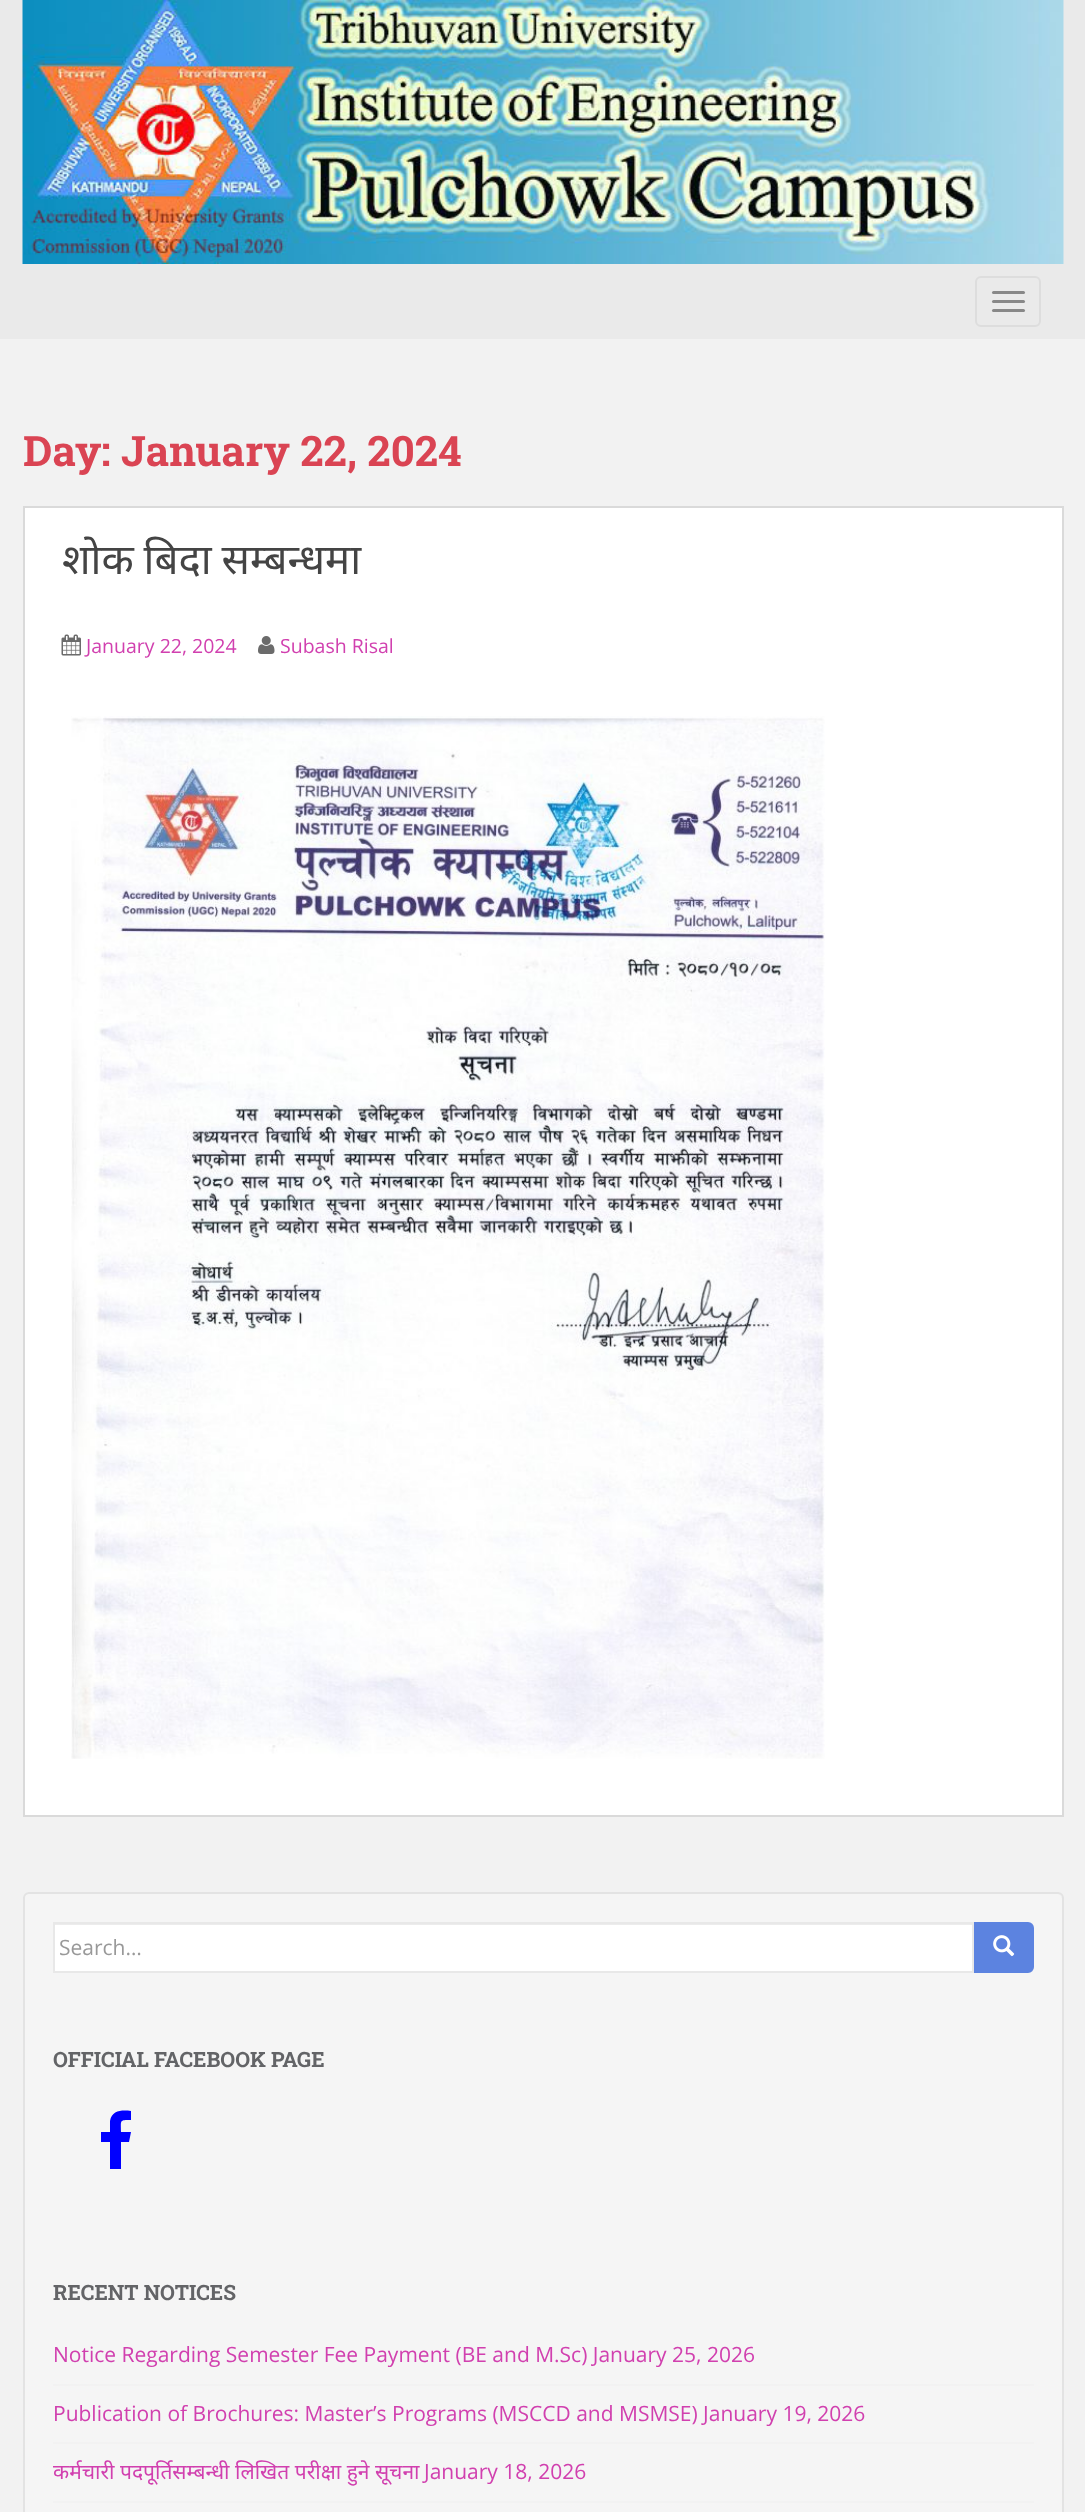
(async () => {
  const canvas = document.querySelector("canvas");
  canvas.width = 1085;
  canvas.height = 2512;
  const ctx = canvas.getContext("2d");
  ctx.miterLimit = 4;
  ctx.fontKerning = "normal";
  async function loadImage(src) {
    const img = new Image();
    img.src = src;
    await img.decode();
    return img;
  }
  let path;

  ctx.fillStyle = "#f2f2f2";
  ctx.fillRect(0, 0, 1085, 2512);
  ctx.fillStyle = "#eaeaea";
  ctx.fillRect(0, 0, 1085, 339);
  ctx.drawImage(await loadImage("img/1.png"), 22, 0, 1042, 264);
  ctx.beginPath();
  ctx.roundRect(976, 277, 64, 49, 5);
  ctx.strokeStyle = "#dddddd";
  ctx.lineWidth = 2;
  ctx.stroke();
  ctx.fillStyle = "#888888";
  ctx.beginPath();
  ctx.roundRect(992, 291, 33, 3, 1.5);
  ctx.fill();
  ctx.beginPath();
  ctx.roundRect(992, 300, 33, 3, 1.5);
  ctx.fill();
  ctx.beginPath();
  ctx.roundRect(992, 309, 33, 3, 1.5);
  ctx.fill();
  ctx.fillStyle = "#ffffff";
  ctx.beginPath();
  ctx.rect(24, 507, 1039, 1309);
  ctx.fill();
  ctx.strokeStyle = "#dadada";
  ctx.stroke();
  ctx.drawImage(await loadImage("img/2.png"), 61, 634, 20, 22);
  ctx.drawImage(await loadImage("img/3.png"), 258, 636, 17, 18);
  ctx.drawImage(await loadImage("img/4.png"), 71, 716, 754, 1043);
  ctx.fillStyle = "#f5f5f5";
  ctx.beginPath();
  ctx.roundRect(23, 1892, 1041, 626, 6);
  ctx.fill();
  ctx.fillStyle = "#e9e9e9";
  path = new Path2D("M28 1894H1058C1060 1894 1062 1897 1062 1899C1062 1896 1060 1893 1057 1893H29C26 1893 24 1896 24 1899C24 1897 26 1894 28 1894Z");
  ctx.fill(path);
  ctx.beginPath();
  ctx.roundRect(24, 1893, 1039, 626, 5);
  ctx.strokeStyle = "#e3e3e3";
  ctx.stroke();
  ctx.fillStyle = "#ffffff";
  ctx.fillRect(55, 1925, 917, 46);
  ctx.fillStyle = "#ececec";
  ctx.fillRect(54, 1924, 918, 1);
  ctx.strokeStyle = "#e8e8e8";
  ctx.strokeRect(54, 1923, 919, 49);
  ctx.fillStyle = "#5c83e0";
  ctx.beginPath();
  ctx.roundRect(975, 1923, 58, 49, [0, 5, 5, 0]);
  ctx.fill();
  ctx.strokeStyle = "#5c83e0";
  ctx.stroke();
  ctx.drawImage(await loadImage("img/5.png"), 993, 1935, 22, 22);
  ctx.fillStyle = "#0000ff";
  path = new Path2D("M131 2111V2120C119 2120 121 2120 121 2132H131L129 2142H121V2169H110V2142H101V2132H110V2121C112 2110 122 2110 131 2111Z");
  ctx.fill(path);
  for (const [x, y, w, h, color] of [
    [53, 2384, 981, 2, "#f2f2f2"],
    [53, 2442, 981, 2, "#f2f2f2"],
    [53, 2501, 981, 2, "#f2f2f2"],
  ]) {
    ctx.fillStyle = color;
    ctx.fillRect(x, y, w, h);
  }
  ctx.font = "bold 42px Roboto Slab";
  ctx.fillStyle = "#da4453";
  ctx.fillText("Day: January 22, 2024", 23, 466);
  ctx.wordSpacing = "-1px";
  ctx.font = "42px Noto Sans";
  ctx.fillStyle = "#444444";
  ctx.fillText("शोक बिदा सम्बन्धमा", 62, 574);
  ctx.wordSpacing = "0px";
  ctx.font = "19.5px Open Sans";
  ctx.fillStyle = "#d140af";
  ctx.fillText("January 22, 2024", 86, 653);
  ctx.fillText("Subash Risal", 280, 653);
  ctx.font = "21px Open Sans";
  ctx.fillStyle = "#999999";
  ctx.fillText("Search…", 59, 1955);
  ctx.font = "bold 21px Roboto Slab";
  ctx.fillStyle = "#636467";
  ctx.fillText("OFFICIAL FACEBOOK PAGE", 53, 2067);
  ctx.fillText("RECENT NOTICES", 53, 2300);
  ctx.font = "21px Open Sans";
  ctx.fillStyle = "#d140af";
  ctx.fillText("Notice Regarding Semester Fee Payment (BE and M.Sc) January 25, 2026", 53, 2362);
  ctx.fillText("Publication of Brochures: Master’s Programs (MSCCD and MSMSE) January 19, 2026", 53, 2421);
  ctx.font = "21px Noto Sans";
  ctx.fillText("कर्मचारी पदपूर्तिसम्बन्धी लिखित परीक्षा हुने सूचना", 53, 2479);
  ctx.font = "21px Open Sans";
  ctx.fillText("January 18, 2026", 424, 2479);
})();
